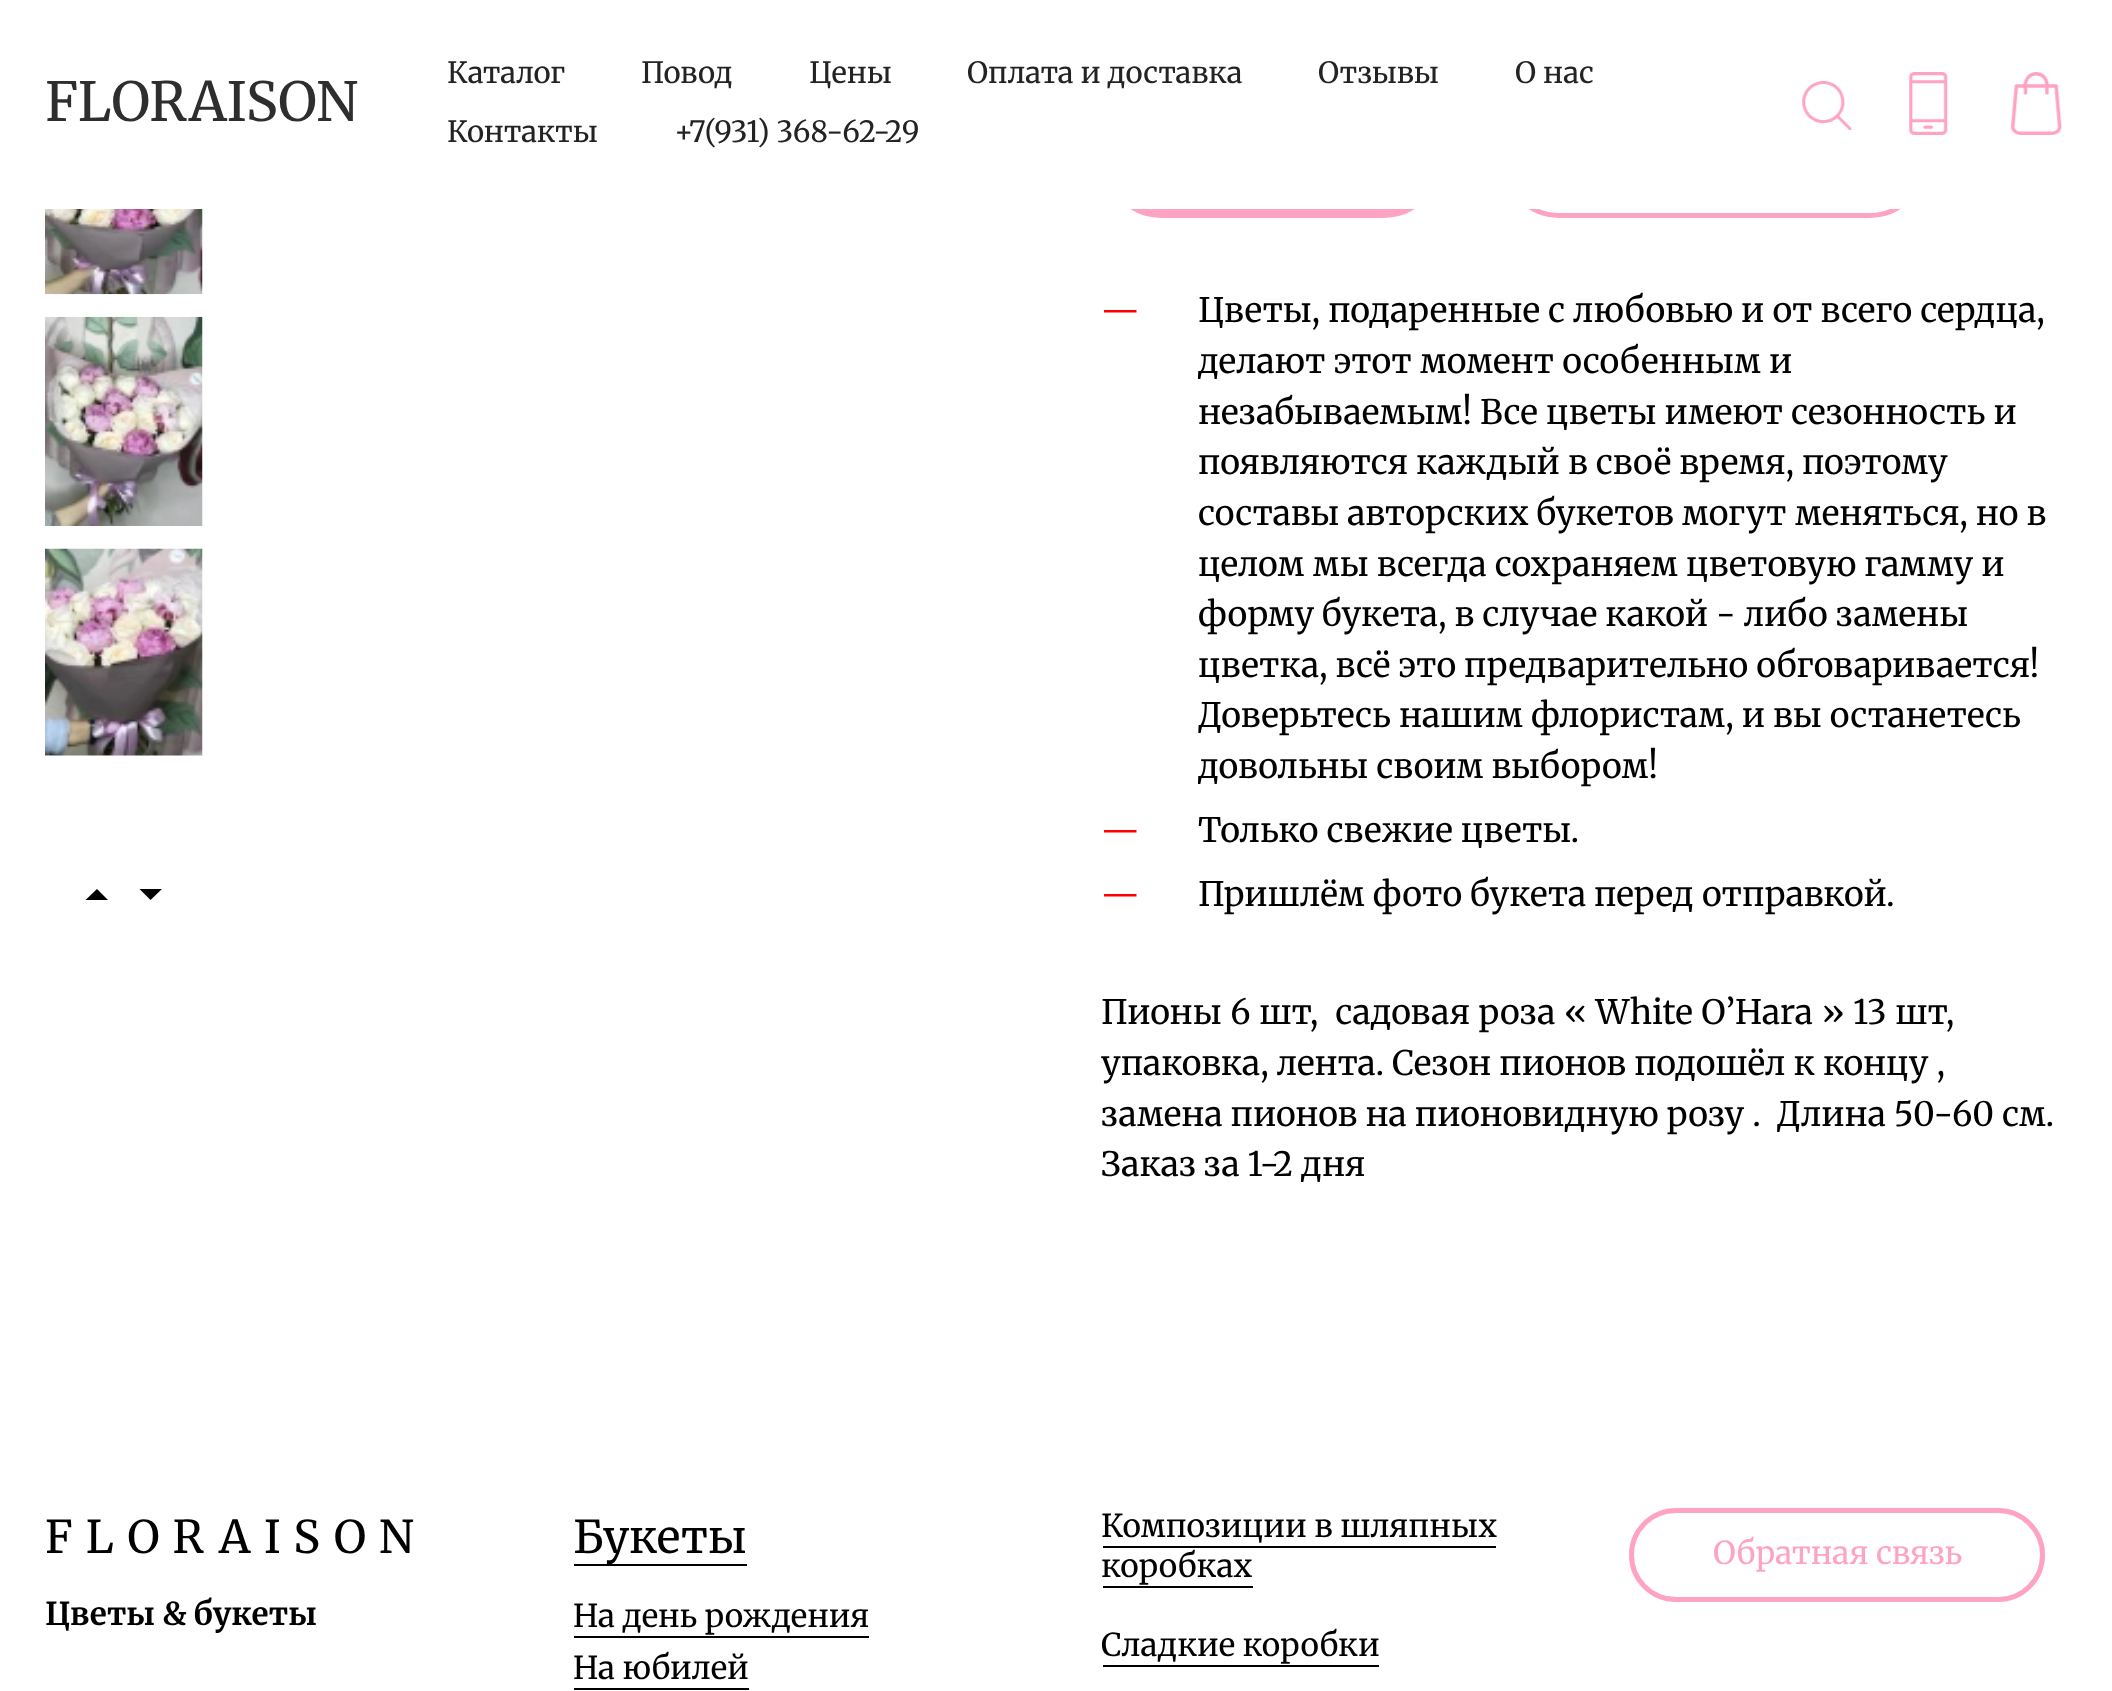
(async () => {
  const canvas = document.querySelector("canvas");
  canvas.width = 2112;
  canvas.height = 1691;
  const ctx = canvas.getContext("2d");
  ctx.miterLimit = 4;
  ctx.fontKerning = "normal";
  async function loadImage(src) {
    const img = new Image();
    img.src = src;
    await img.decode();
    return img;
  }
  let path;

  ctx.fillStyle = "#ffffff";
  ctx.fillRect(0, 0, 2112, 1691);
  ctx.fillStyle = "#ffa3c3";
  ctx.beginPath();
  ctx.roundRect(1105.5, 103.5, 334, 112, 56);
  ctx.fill();
  ctx.strokeStyle = "#ffa3c3";
  ctx.lineWidth = 5;
  ctx.stroke();
  ctx.beginPath();
  ctx.roundRect(1503.5, 103.5, 422, 112, 56);
  ctx.stroke();
  ctx.fillStyle = "#ffffff";
  ctx.fillRect(1103, 101, 825, 108);
  ctx.drawImage(await loadImage("img/1.png"), 1802, 81, 50, 50);
  ctx.drawImage(await loadImage("img/2.png"), 1909, 72, 39, 63);
  ctx.drawImage(await loadImage("img/3.png"), 2010, 72, 53, 63);
  ctx.drawImage(await loadImage("img/4.png"), 45, 209, 158, 86);
  ctx.drawImage(await loadImage("img/5.png"), 45, 316, 158, 210);
  ctx.drawImage(await loadImage("img/6.png"), 45, 548, 158, 208);
  ctx.fillStyle = "#000000";
  path = new Path2D("M108 900H85.5L97 889Z");
  ctx.fill(path);
  path = new Path2D("M139.5 889H162L150.5 900Z");
  ctx.fill(path);
  for (const [x, y, w, h, color] of [
    [574, 1564, 173, 2, "#000000"],
    [574, 1636, 295, 2, "#000000"],
    [574, 1688, 175, 2, "#000000"],
    [1103, 1546, 393, 2, "#000000"],
    [1103, 1586, 150, 2, "#000000"],
    [1103, 1665, 276, 2, "#000000"],
  ]) {
    ctx.fillStyle = color;
    ctx.fillRect(x, y, w, h);
  }
  ctx.beginPath();
  ctx.roundRect(1631.5, 1510.5, 411, 89, 44.5);
  ctx.stroke();
  ctx.font = "54px Merriweather";
  ctx.fillStyle = "#2e2e2e";
  ctx.fillText("FLORAISON", 45, 121);
  ctx.font = "29.25px Merriweather";
  ctx.fillStyle = "#242323";
  for (const [text, x, y] of [
    ["Каталог", 447, 83],
    ["Повод", 641, 83],
    ["Цены", 809, 83],
    ["Оплата и доставка", 967, 83],
    ["Отзывы", 1318, 83],
    ["О нас", 1515, 83],
    ["Контакты", 447, 142],
    ["+7(931) 368-62-29", 674, 142],
  ]) {
    ctx.fillText(text, x, y);
  }
  ctx.font = "33.75px Merriweather";
  ctx.fillStyle = "#ff0000";
  ctx.fillText("—", 1101, 322);
  ctx.fillStyle = "#000000";
  for (const [text, x, y] of [
    ["Цветы, подаренные с любовью и от всего сердца,", 1198, 322],
    ["делают этот момент особенным и", 1198, 373],
    ["незабываемым!", 1198, 424],
    ["Все цветы имеют сезонность и", 1480, 424],
    ["появляются каждый в своё время, поэтому", 1198, 474],
    ["составы авторских букетов могут меняться, но в", 1198, 525],
    ["целом мы всегда сохраняем цветовую гамму и", 1198, 576],
    ["форму букета, в случае какой - либо замены", 1198, 626],
    ["цветка, всё это предварительно обговаривается!", 1198, 677],
    ["Доверьтесь нашим флористам, и вы останетесь", 1198, 727],
    ["довольны своим выбором!", 1198, 778],
  ]) {
    ctx.fillText(text, x, y);
  }
  ctx.fillStyle = "#ff0000";
  ctx.fillText("—", 1101, 842);
  ctx.fillStyle = "#000000";
  ctx.fillText("Только свежие цветы.", 1198, 842);
  ctx.fillStyle = "#ff0000";
  ctx.fillText("—", 1101, 906);
  ctx.fillStyle = "#000000";
  ctx.fillText("Пришлём фото букета перед отправкой.", 1198, 906);
  ctx.wordSpacing = "0.5px";
  ctx.fillText("Пионы 6 шт,  садовая роза « White O’Hara » 13 шт,", 1101, 1024);
  ctx.wordSpacing = "0px";
  for (const [text, x, y] of [
    ["упаковка, лента. Сезон пионов подошёл к концу ,", 1101, 1075],
    ["замена пионов на пионовидную розу .  Длина 50-60 см.", 1101, 1126],
    ["Заказ за 1-2 дня", 1101, 1176],
  ]) {
    ctx.fillText(text, x, y);
  }
  ctx.letterSpacing = "13.5px";
  ctx.font = "45px Merriweather";
  ctx.fillText("FLORAISON", 45, 1553);
  ctx.letterSpacing = "0px";
  ctx.font = "bold 31.5px Merriweather";
  ctx.fillText("Цветы & букеты", 45, 1625);
  ctx.font = "45px Merriweather";
  ctx.fillText("Букеты", 573, 1553);
  ctx.font = "31.5px Merriweather";
  for (const [text, x, y] of [
    ["На день рождения", 573, 1627],
    ["На юбилей", 573, 1679],
    ["Композиции в шляпных", 1101, 1537],
    ["коробках", 1101, 1577],
    ["Сладкие коробки", 1101, 1656],
  ]) {
    ctx.fillText(text, x, y);
  }
  ctx.fillStyle = "#ffa3c3";
  ctx.fillText("Обратная связь", 1713, 1564);
})();
